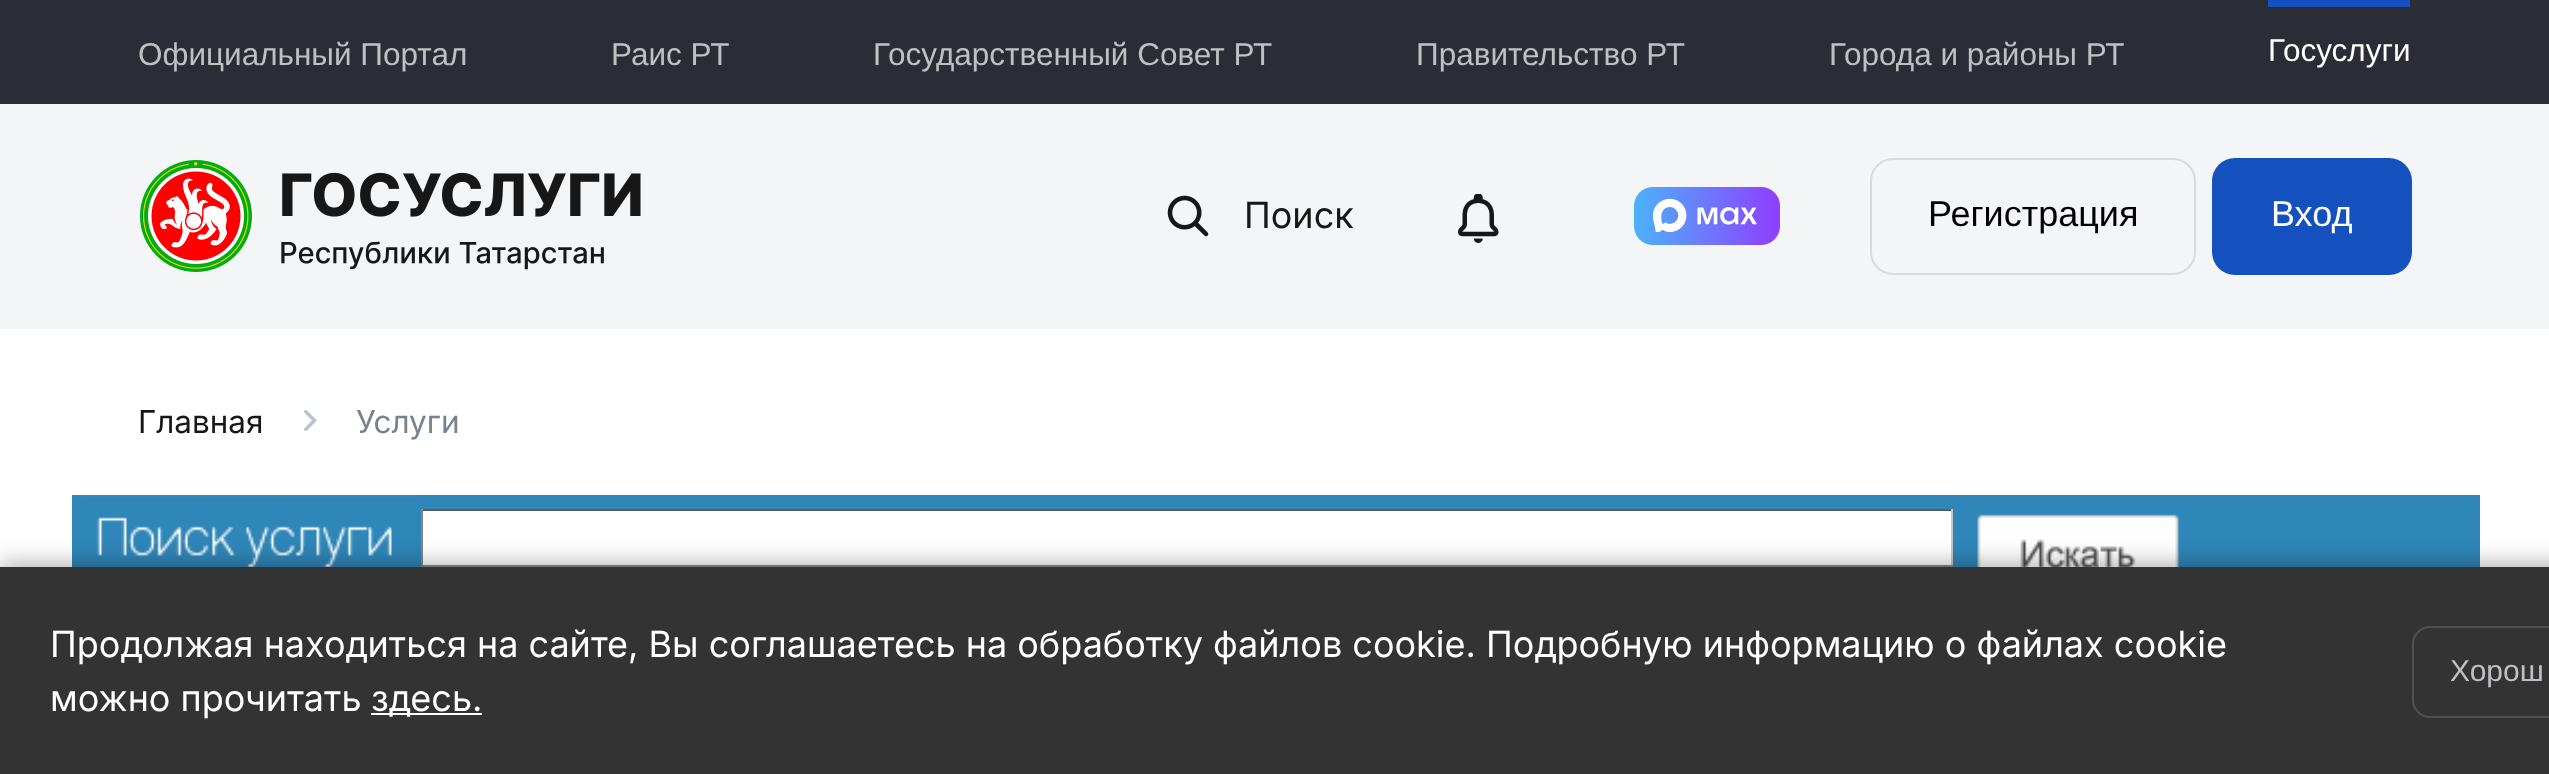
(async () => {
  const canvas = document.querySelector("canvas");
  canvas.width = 2549;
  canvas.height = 774;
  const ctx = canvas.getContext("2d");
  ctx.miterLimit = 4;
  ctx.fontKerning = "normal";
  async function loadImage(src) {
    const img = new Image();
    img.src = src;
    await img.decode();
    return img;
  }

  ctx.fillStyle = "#ffffff";
  ctx.fillRect(0, 0, 2549, 774);
  for (const [x, y, w, h, color] of [
    [0, 0, 2549, 104, "#2b2d36"],
    [2268, 0, 142, 7, "#164fbf"],
    [0, 104, 2549, 225, "#f3f5f7"],
  ]) {
    ctx.fillStyle = color;
    ctx.fillRect(x, y, w, h);
  }
  ctx.drawImage(await loadImage("img/1.png"), 140, 160, 501, 112);
  ctx.drawImage(await loadImage("img/2.png"), 1167, 195, 42, 42);
  ctx.drawImage(await loadImage("img/3.png"), 1458, 194, 41, 49);
  ctx.drawImage(await loadImage("img/4.png"), 1634, 187, 146, 58);
  ctx.beginPath();
  ctx.roundRect(1871, 159, 324, 115, 22);
  ctx.strokeStyle = "#d9dadc";
  ctx.lineWidth = 2;
  ctx.stroke();
  ctx.fillStyle = "#1450be";
  ctx.beginPath();
  ctx.roundRect(2212, 158, 200, 117, 23);
  ctx.fill();
  ctx.drawImage(await loadImage("img/5.png"), 304, 410, 13, 21);
  ctx.fillStyle = "#2f86b8";
  ctx.fillRect(416, 495, 2064, 72);
  ctx.drawImage(await loadImage("img/6.png"), 72, 495, 344, 72);
  for (const [x, y, w, h, color] of [
    [423, 511, 1528, 54, "#ffffff"],
    [421, 509, 1532, 2, "#5c5c5c"],
    [1951, 509, 2, 58, "#c8c8c8"],
    [421, 565, 1532, 2, "#8a8a8a"],
    [421, 509, 2, 58, "#858585"],
  ]) {
    ctx.fillStyle = color;
    ctx.fillRect(x, y, w, h);
  }
  ctx.drawImage(await loadImage("img/7.png"), 1977, 514, 202, 53);
  ctx.fillStyle = "rgba(0, 0, 0, 0.3)";
  ctx.filter = "blur(11px)";
  ctx.beginPath();
  ctx.rect(0, 563, 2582, 207);
  ctx.fill();
  ctx.filter = "none";
  ctx.fillStyle = "#333333";
  ctx.fillRect(0, 567, 2549, 207);
  ctx.fillStyle = "#ffffff";
  ctx.fillRect(371, 713, 111, 2);
  ctx.beginPath();
  ctx.roundRect(2413, 627, 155, 90, 17);
  ctx.strokeStyle = "#505050";
  ctx.stroke();
  ctx.font = "31.5px Liberation Sans";
  ctx.fillStyle = "#bfc0c3";
  for (const [text, x, y] of [
    ["Официальный Портал", 138, 65],
    ["Раис РТ", 611, 65],
    ["Государственный Совет РТ", 873, 65],
    ["Правительство РТ", 1416, 65],
    ["Города и районы РТ", 1829, 65],
  ]) {
    ctx.fillText(text, x, y);
  }
  ctx.fillStyle = "#ffffff";
  ctx.fillText("Госуслуги", 2268, 61);
  ctx.font = "36px Inter";
  ctx.fillStyle = "#171717";
  ctx.fillText("Поиск", 1244, 228);
  ctx.font = "36px Liberation Sans";
  ctx.fillStyle = "#000000";
  ctx.fillText("Регистрация", 1928, 226);
  ctx.fillStyle = "#ffffff";
  ctx.fillText("Вход", 2271, 226);
  ctx.font = "31.5px Inter";
  ctx.fillStyle = "#171717";
  ctx.fillText("Главная", 138, 433);
  ctx.fillStyle = "#78828c";
  ctx.fillText("Услуги", 356, 433);
  ctx.font = "36px Inter";
  ctx.fillStyle = "#ffffff";
  for (const [text, x, y] of [
    ["Продолжая находиться на сайте, Вы соглашаетесь на обработку файлов cookie. Подробную информацию о файлах cookie", 50, 657],
    ["можно прочитать", 50, 711],
    ["здесь.", 371, 711],
  ]) {
    ctx.fillText(text, x, y);
  }
  ctx.font = "30px Liberation Sans";
  ctx.fillStyle = "#bfc0c3";
  ctx.fillText("Хорош", 2450, 681);
})();
